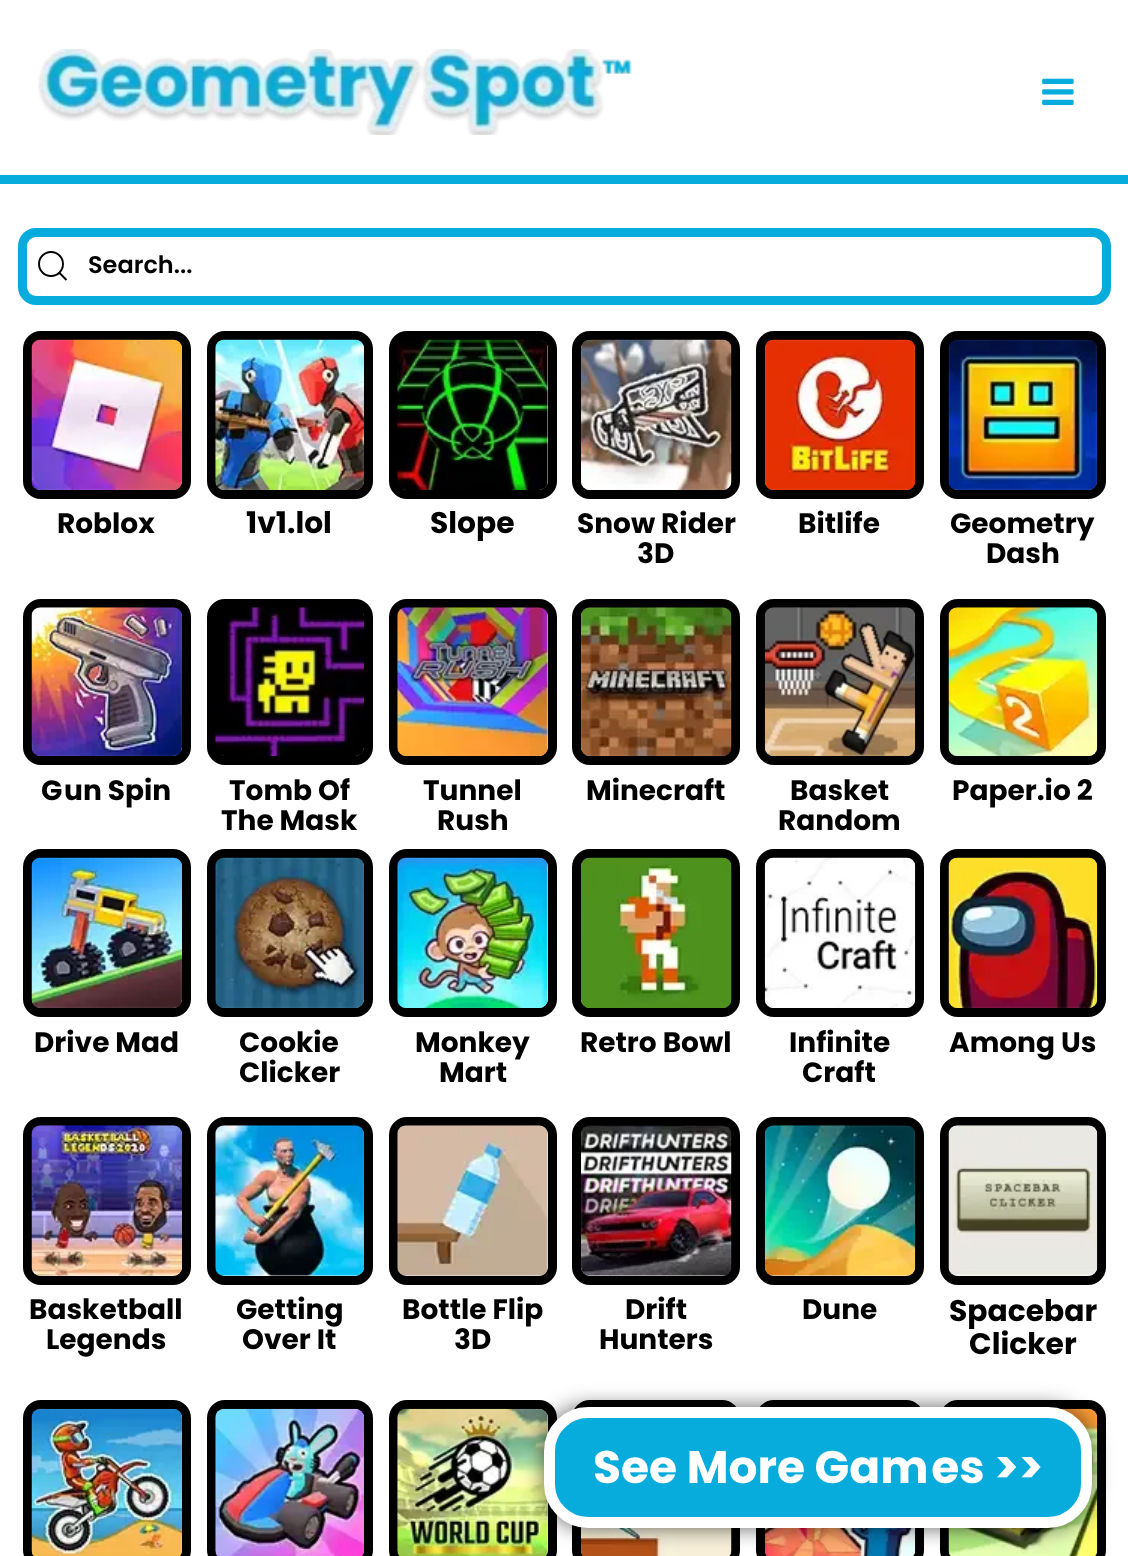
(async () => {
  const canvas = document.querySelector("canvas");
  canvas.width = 1128;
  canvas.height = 1556;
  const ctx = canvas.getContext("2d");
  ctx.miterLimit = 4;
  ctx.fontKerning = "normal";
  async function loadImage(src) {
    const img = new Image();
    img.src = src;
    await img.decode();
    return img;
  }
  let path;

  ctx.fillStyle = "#ffffff";
  ctx.fillRect(0, 0, 1128, 1556);
  ctx.fillStyle = "#08acdc";
  ctx.fillRect(0, 175, 1128, 9);
  ctx.drawImage(await loadImage("img/1.png"), 38, 49, 594, 86);
  ctx.drawImage(await loadImage("img/2.png"), 1042, 78, 32, 27);
  ctx.beginPath();
  ctx.roundRect(22.5, 232.5, 1084, 68, 13.5);
  ctx.strokeStyle = "#08acdc";
  ctx.lineWidth = 9;
  ctx.stroke();
  ctx.beginPath();
  ctx.arc(51, 264, 12, 0, Math.PI * 2);
  ctx.strokeStyle = "#000000";
  ctx.lineWidth = 1.9;
  ctx.stroke();
  path = new Path2D("M59.5 273L66.5 280Z");
  ctx.stroke(path);
  ctx.beginPath();
  ctx.roundRect(27.5, 335.5, 159, 159, 13.5);
  ctx.lineWidth = 9;
  ctx.stroke();
  ctx.drawImage(await loadImage("img/3.png"), 31, 339, 151, 151);
  ctx.beginPath();
  ctx.roundRect(211.5, 335.5, 157, 159, 13.5);
  ctx.stroke();
  ctx.drawImage(await loadImage("img/4.png"), 215, 339, 149, 151);
  ctx.beginPath();
  ctx.roundRect(393.5, 335.5, 159, 159, 13.5);
  ctx.stroke();
  ctx.drawImage(await loadImage("img/5.png"), 397, 339, 151, 151);
  ctx.beginPath();
  ctx.roundRect(576.5, 335.5, 159, 159, 13.5);
  ctx.stroke();
  ctx.drawImage(await loadImage("img/6.png"), 581, 339, 151, 151);
  ctx.beginPath();
  ctx.roundRect(760.5, 335.5, 159, 159, 13.5);
  ctx.stroke();
  ctx.drawImage(await loadImage("img/7.png"), 764, 339, 152, 151);
  ctx.beginPath();
  ctx.roundRect(944.5, 335.5, 157, 159, 13.5);
  ctx.stroke();
  ctx.drawImage(await loadImage("img/8.png"), 948, 339, 150, 151);
  ctx.beginPath();
  ctx.roundRect(27.5, 603.5, 159, 157, 13.5);
  ctx.stroke();
  ctx.drawImage(await loadImage("img/9.png"), 31, 607, 151, 149);
  ctx.beginPath();
  ctx.roundRect(211.5, 603.5, 157, 157, 13.5);
  ctx.stroke();
  ctx.drawImage(await loadImage("img/10.png"), 215, 607, 149, 149);
  ctx.beginPath();
  ctx.roundRect(393.5, 603.5, 159, 157, 13.5);
  ctx.stroke();
  ctx.drawImage(await loadImage("img/11.png"), 397, 607, 151, 149);
  ctx.beginPath();
  ctx.roundRect(576.5, 603.5, 159, 157, 13.5);
  ctx.stroke();
  ctx.drawImage(await loadImage("img/12.png"), 581, 607, 151, 149);
  ctx.beginPath();
  ctx.roundRect(760.5, 603.5, 159, 157, 13.5);
  ctx.stroke();
  ctx.drawImage(await loadImage("img/13.png"), 764, 607, 152, 149);
  ctx.beginPath();
  ctx.roundRect(944.5, 603.5, 157, 157, 13.5);
  ctx.stroke();
  ctx.drawImage(await loadImage("img/14.png"), 948, 607, 150, 149);
  ctx.beginPath();
  ctx.roundRect(27.5, 853.5, 159, 159, 13.5);
  ctx.stroke();
  ctx.drawImage(await loadImage("img/15.png"), 31, 857, 151, 151);
  ctx.beginPath();
  ctx.roundRect(211.5, 853.5, 157, 159, 13.5);
  ctx.stroke();
  ctx.drawImage(await loadImage("img/16.png"), 215, 857, 149, 151);
  ctx.beginPath();
  ctx.roundRect(393.5, 853.5, 159, 159, 13.5);
  ctx.stroke();
  ctx.drawImage(await loadImage("img/17.png"), 397, 857, 151, 151);
  ctx.beginPath();
  ctx.roundRect(576.5, 853.5, 159, 159, 13.5);
  ctx.stroke();
  ctx.drawImage(await loadImage("img/18.png"), 581, 857, 151, 151);
  ctx.beginPath();
  ctx.roundRect(760.5, 853.5, 159, 159, 13.5);
  ctx.stroke();
  ctx.drawImage(await loadImage("img/19.png"), 764, 857, 152, 151);
  ctx.beginPath();
  ctx.roundRect(944.5, 853.5, 157, 159, 13.5);
  ctx.stroke();
  ctx.drawImage(await loadImage("img/20.png"), 948, 857, 150, 151);
  ctx.beginPath();
  ctx.roundRect(27.5, 1121.5, 159, 159, 13.5);
  ctx.stroke();
  ctx.drawImage(await loadImage("img/21.png"), 31, 1125, 151, 151);
  ctx.beginPath();
  ctx.roundRect(211.5, 1121.5, 157, 159, 13.5);
  ctx.stroke();
  ctx.drawImage(await loadImage("img/22.png"), 215, 1125, 149, 151);
  ctx.beginPath();
  ctx.roundRect(393.5, 1121.5, 159, 159, 13.5);
  ctx.stroke();
  ctx.drawImage(await loadImage("img/23.png"), 397, 1125, 151, 151);
  ctx.beginPath();
  ctx.roundRect(576.5, 1121.5, 159, 159, 13.5);
  ctx.stroke();
  ctx.drawImage(await loadImage("img/24.png"), 581, 1125, 151, 151);
  ctx.beginPath();
  ctx.roundRect(760.5, 1121.5, 159, 159, 13.5);
  ctx.stroke();
  ctx.drawImage(await loadImage("img/25.png"), 764, 1125, 152, 151);
  ctx.beginPath();
  ctx.roundRect(944.5, 1121.5, 157, 159, 13.5);
  ctx.stroke();
  ctx.drawImage(await loadImage("img/26.png"), 948, 1125, 150, 151);
  ctx.beginPath();
  ctx.roundRect(27.5, 1404.5, 159, 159, 13.5);
  ctx.stroke();
  ctx.drawImage(await loadImage("img/27.png"), 31, 1408, 151, 148);
  ctx.beginPath();
  ctx.roundRect(211.5, 1404.5, 157, 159, 13.5);
  ctx.stroke();
  ctx.drawImage(await loadImage("img/28.png"), 215, 1408, 149, 148);
  ctx.beginPath();
  ctx.roundRect(393.5, 1404.5, 159, 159, 13.5);
  ctx.stroke();
  ctx.drawImage(await loadImage("img/29.png"), 397, 1408, 151, 148);
  ctx.beginPath();
  ctx.roundRect(576.5, 1404.5, 159, 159, 13.5);
  ctx.stroke();
  ctx.drawImage(await loadImage("img/30.png"), 581, 1527, 151, 29);
  ctx.beginPath();
  ctx.roundRect(760.5, 1404.5, 159, 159, 13.5);
  ctx.stroke();
  ctx.drawImage(await loadImage("img/31.png"), 764, 1528, 152, 28);
  ctx.beginPath();
  ctx.roundRect(944.5, 1404.5, 157, 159, 13.5);
  ctx.stroke();
  ctx.drawImage(await loadImage("img/32.png"), 948, 1408, 150, 148);
  ctx.fillStyle = "rgba(0, 0, 0, 0.61)";
  ctx.filter = "blur(10.5px)";
  ctx.beginPath();
  ctx.roundRect(544, 1407, 548, 121, 44);
  ctx.fill();
  ctx.filter = "none";
  ctx.fillStyle = "#08acdc";
  ctx.beginPath();
  ctx.roundRect(549.5, 1412.5, 537, 110, 38.5);
  ctx.fill();
  ctx.strokeStyle = "#ffffff";
  ctx.lineWidth = 11;
  ctx.stroke();
  ctx.font = "600 24px Poppins";
  ctx.fillStyle = "#000000";
  ctx.fillText("Search...", 88, 273);
  ctx.font = "bold 28px Poppins";
  ctx.fillText("Roblox", 57, 533);
  ctx.font = "bold 29.75px Poppins";
  ctx.fillText("1v1.lol", 246, 533);
  ctx.fillText("Slope", 430, 533);
  ctx.font = "bold 28px Poppins";
  for (const [text, x, y] of [
    ["Snow Rider", 577, 533],
    ["3D", 637, 563],
    ["Bitlife", 798, 533],
    ["Geometry", 950, 533],
    ["Dash", 986, 563],
    ["G un Spin", 41, 800],
    ["Tomb Of", 229, 800],
    ["The Mask", 221, 830],
    ["Tunnel", 423, 800],
    ["Rush", 437, 830],
    ["Minecraft", 586, 800],
    ["Basket", 790, 800],
    ["Random", 778, 830],
    ["Paper.io 2", 952, 800],
    ["Drive Mad", 34, 1052],
    ["Cookie", 239, 1052],
    ["Clicker", 239, 1082],
    ["Monkey", 415, 1052],
    ["Mart", 439, 1082],
    ["Retro Bowl", 580, 1052],
    ["Infinite", 789, 1052],
    ["Craft", 802, 1082],
    ["Among Us", 949, 1052],
    ["Basketball", 29, 1319],
    ["Legends", 46, 1349],
    ["Getting", 236, 1319],
    ["Over It", 242, 1349],
    ["Bottle Flip", 402, 1319],
    ["3D", 454, 1349],
    ["Drift", 625, 1319],
    ["Hunters", 599, 1349],
    ["Dune", 802, 1319],
  ]) {
    ctx.fillText(text, x, y);
  }
  ctx.font = "bold 29.75px Poppins";
  ctx.fillText("Spacebar", 949, 1321);
  ctx.fillText("Clicker", 969, 1354);
  ctx.font = "bold 45.5px Poppins";
  ctx.fillStyle = "#ffffff";
  ctx.fillText("See More Gam es >>", 593, 1483);
})();
